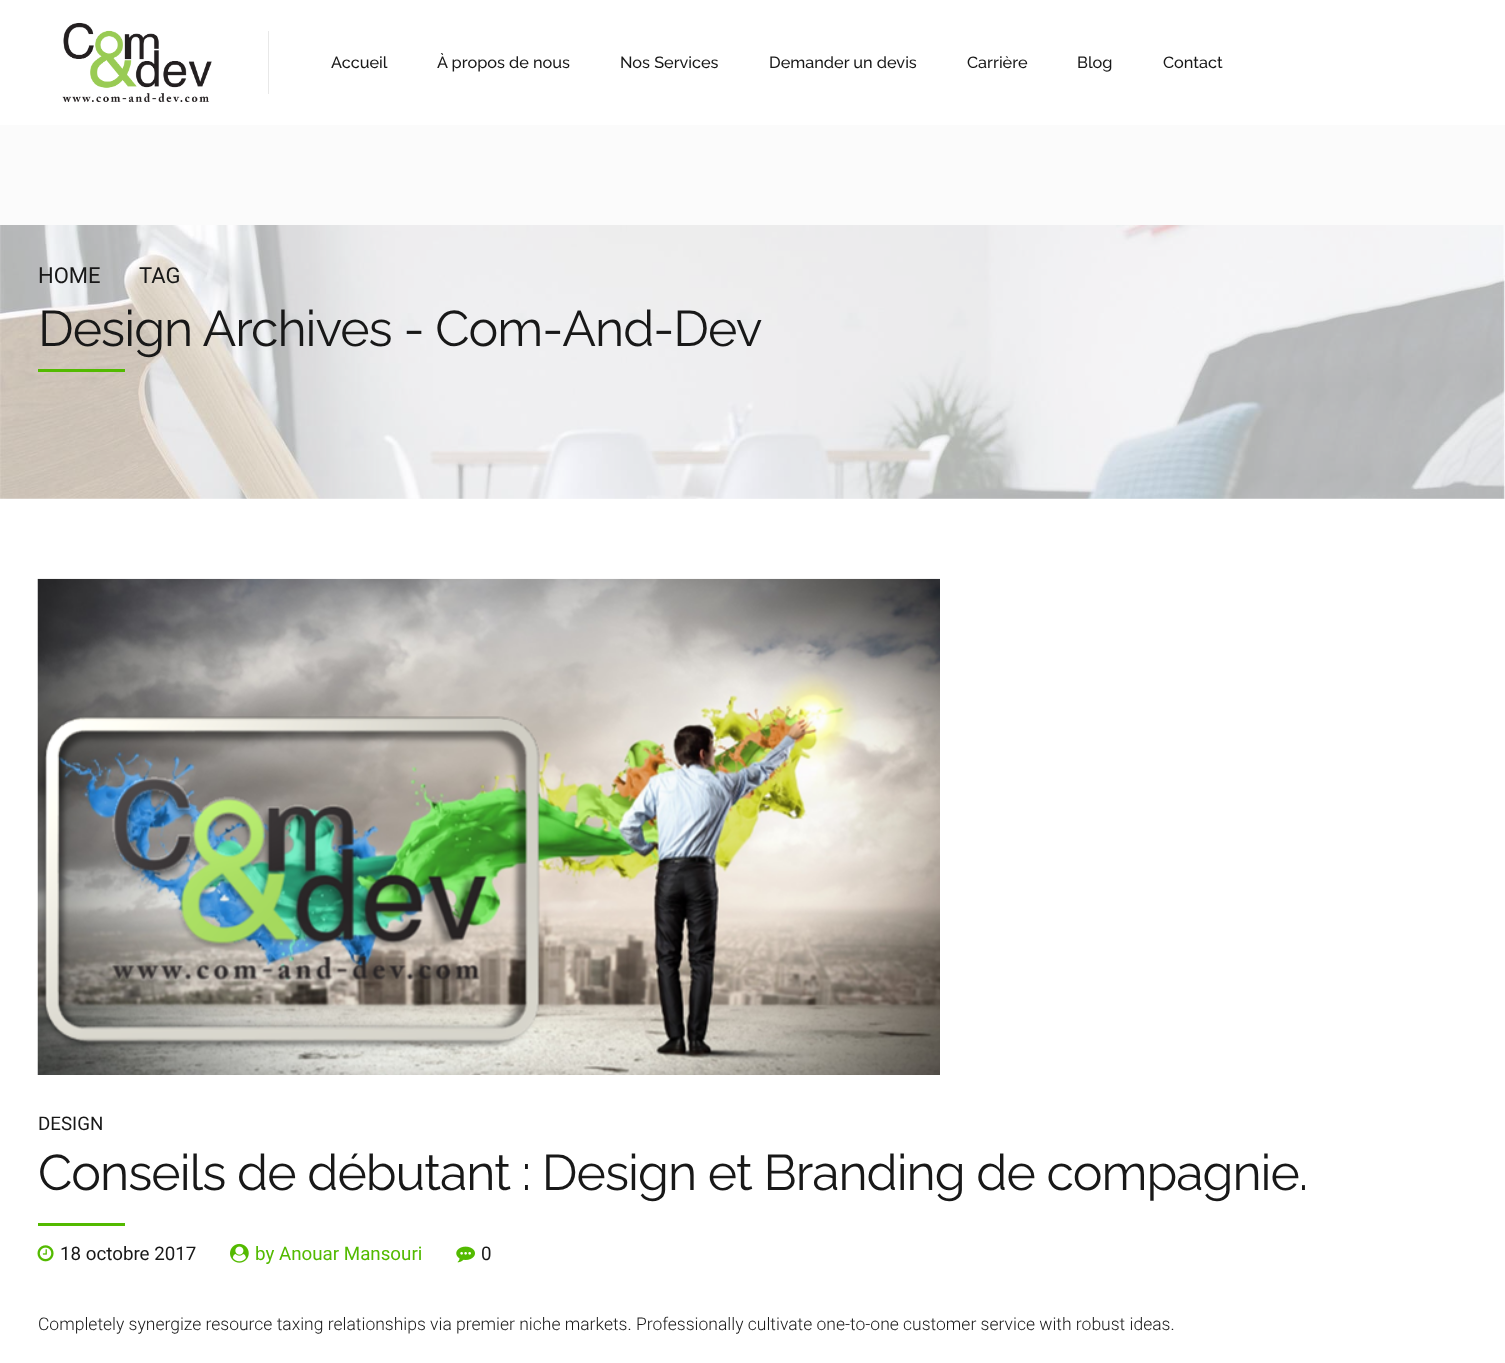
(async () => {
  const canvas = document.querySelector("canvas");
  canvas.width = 1505;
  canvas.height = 1363;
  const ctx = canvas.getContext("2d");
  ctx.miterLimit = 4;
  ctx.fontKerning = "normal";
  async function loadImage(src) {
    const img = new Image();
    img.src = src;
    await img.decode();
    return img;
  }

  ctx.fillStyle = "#ffffff";
  ctx.fillRect(0, 0, 1505, 1363);
  ctx.drawImage(await loadImage("img/1.png"), 62, 22, 150, 80);
  ctx.fillStyle = "#e8e8e8";
  ctx.fillRect(268, 31, 1, 63);
  ctx.fillStyle = "#fbfbfb";
  ctx.fillRect(0, 125, 1505, 374);
  ctx.drawImage(await loadImage("img/2.png"), 0, 225, 1505, 274);
  ctx.fillStyle = "#53ba00";
  ctx.fillRect(38, 369, 87, 3);
  ctx.drawImage(await loadImage("img/3.png"), 37, 578, 903, 497);
  ctx.fillRect(38, 1223, 87, 3);
  ctx.drawImage(await loadImage("img/4.png"), 37, 1245, 17, 17);
  ctx.drawImage(await loadImage("img/5.png"), 230, 1243, 19, 20);
  ctx.drawImage(await loadImage("img/6.png"), 456, 1246, 19, 17);
  ctx.font = "500 16.25px Raleway";
  ctx.fillStyle = "#181818";
  for (const [text, x, y] of [
    ["Accueil", 331, 68],
    ["À propos de nous", 437, 68],
    ["Nos Services", 620, 68],
    ["Demander un devis", 769, 68],
    ["Carrière", 967, 68],
    ["Blog", 1077, 68],
    ["Contact", 1163, 68],
  ]) {
    ctx.fillText(text, x, y);
  }
  ctx.font = "22px Roboto";
  ctx.fillText("HOME", 38, 283);
  ctx.fillText("TAG", 139, 283);
  ctx.letterSpacing = "-1px";
  ctx.font = "50px Raleway";
  ctx.fillText("Design Archives - Com-And-Dev", 38, 346);
  ctx.letterSpacing = "0px";
  ctx.font = "18.75px Roboto";
  ctx.fillText("DESIGN", 38, 1130);
  ctx.letterSpacing = "-1px";
  ctx.font = "50px Raleway";
  ctx.fillText("Conseils de débutant : Design et Branding de compagnie.", 38, 1190);
  ctx.letterSpacing = "0px";
  ctx.font = "18.75px Roboto";
  ctx.fillText("18 octobre 2017", 60, 1260);
  ctx.fillStyle = "#53ba00";
  ctx.fillText("by Anouar Mansouri", 255, 1260);
  ctx.fillStyle = "#181818";
  ctx.fillText("0", 481, 1260);
  ctx.font = "300 17.5px Roboto";
  ctx.fillText("Completely synergize resource taxing relationships via premier niche markets. Professionally cultivate one-to-one customer service with robust ideas.", 38, 1330);
})();
